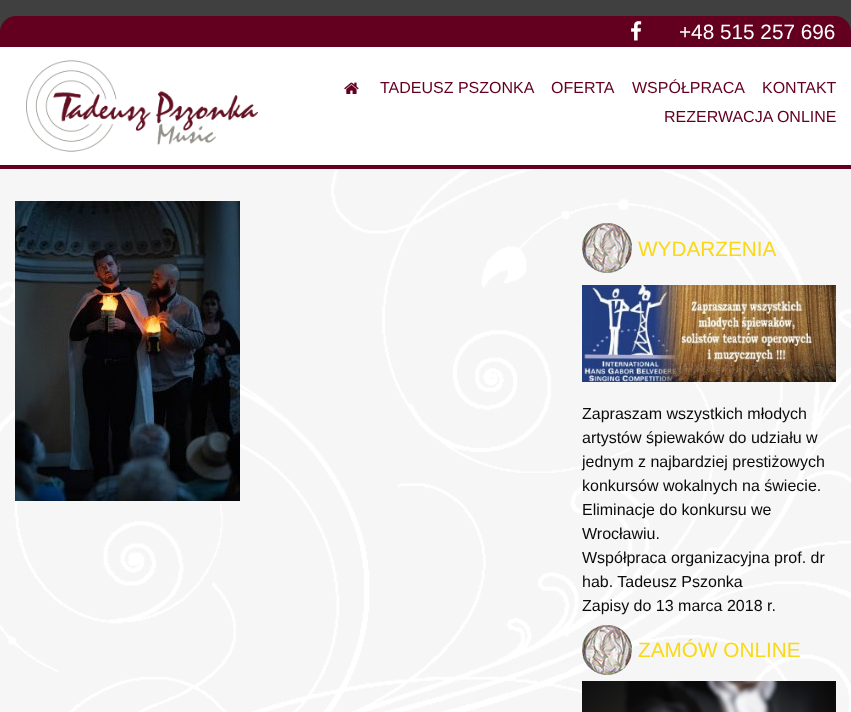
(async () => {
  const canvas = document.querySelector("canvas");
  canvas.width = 851;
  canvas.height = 712;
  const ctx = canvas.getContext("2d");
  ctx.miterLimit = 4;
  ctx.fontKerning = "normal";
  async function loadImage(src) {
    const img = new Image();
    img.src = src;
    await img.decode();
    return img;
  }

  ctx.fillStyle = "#404040";
  ctx.fillRect(0, 0, 851, 712);
  ctx.fillStyle = "#63001f";
  ctx.beginPath();
  ctx.roundRect(0, 16, 851, 31, [16, 16, 0, 0]);
  ctx.fill();
  ctx.drawImage(await loadImage("img/1.png"), 631, 21, 11, 20);
  ctx.fillStyle = "#ffffff";
  ctx.fillRect(0, 47, 851, 118);
  ctx.fillStyle = "#63001f";
  ctx.fillRect(0, 165, 851, 4);
  ctx.drawImage(await loadImage("img/2.png"), 26, 60, 232, 92);
  ctx.drawImage(await loadImage("img/3.png"), 344, 82, 15, 12);
  ctx.fillStyle = "#f6f6f6";
  ctx.fillRect(0, 169, 851, 543);
  ctx.drawImage(await loadImage("img/4.png"), 0, 169, 851, 543);
  ctx.drawImage(await loadImage("img/5.png"), 15, 201, 225, 300);
  ctx.drawImage(await loadImage("img/6.png"), 582, 223, 50, 50);
  ctx.drawImage(await loadImage("img/7.png"), 582, 285, 254, 97);
  ctx.drawImage(await loadImage("img/8.png"), 582, 625, 50, 50);
  ctx.drawImage(await loadImage("img/9.png"), 582, 681, 254, 31);
  ctx.font = "20.75px Liberation Sans";
  ctx.fillStyle = "#ffffff";
  ctx.fillText("+48 515 257 696", 679, 39);
  ctx.font = "16px Liberation Sans";
  ctx.fillStyle = "#63001f";
  for (const [text, x, y] of [
    ["TADEUSZ PSZONKA", 380, 93],
    ["OFERTA", 551, 93],
    ["WSPÓŁPRACA", 632, 93],
    ["KONTAKT", 762, 93],
    ["REZERWACJA ONLINE", 664, 122],
  ]) {
    ctx.fillText(text, x, y);
  }
  ctx.font = "20.75px Liberation Sans";
  ctx.fillStyle = "#f9d819";
  ctx.fillText("WYDARZENIA", 638, 256);
  ctx.font = "16px Liberation Sans";
  ctx.fillStyle = "#0a0a0a";
  for (const [text, x, y] of [
    ["Zapraszam wszystkich młodych", 582, 419],
    ["artystów śpiewaków do udziału w", 582, 443],
    ["jednym z najbardziej prestiżowych", 582, 467],
    ["konkursów wokalnych na świecie.", 582, 491],
    ["Eliminacje do konkursu we", 582, 515],
    ["Wrocławiu.", 582, 539],
    ["Współpraca organizacyjna prof. dr", 582, 563],
    ["hab. Tadeusz Pszonka", 582, 587],
    ["Zapisy do 13 marca 2018 r.", 582, 611],
  ]) {
    ctx.fillText(text, x, y);
  }
  ctx.font = "20.75px Liberation Sans";
  ctx.fillStyle = "#f9d819";
  ctx.fillText("ZAMÓW ONLINE", 638, 657);
})();
